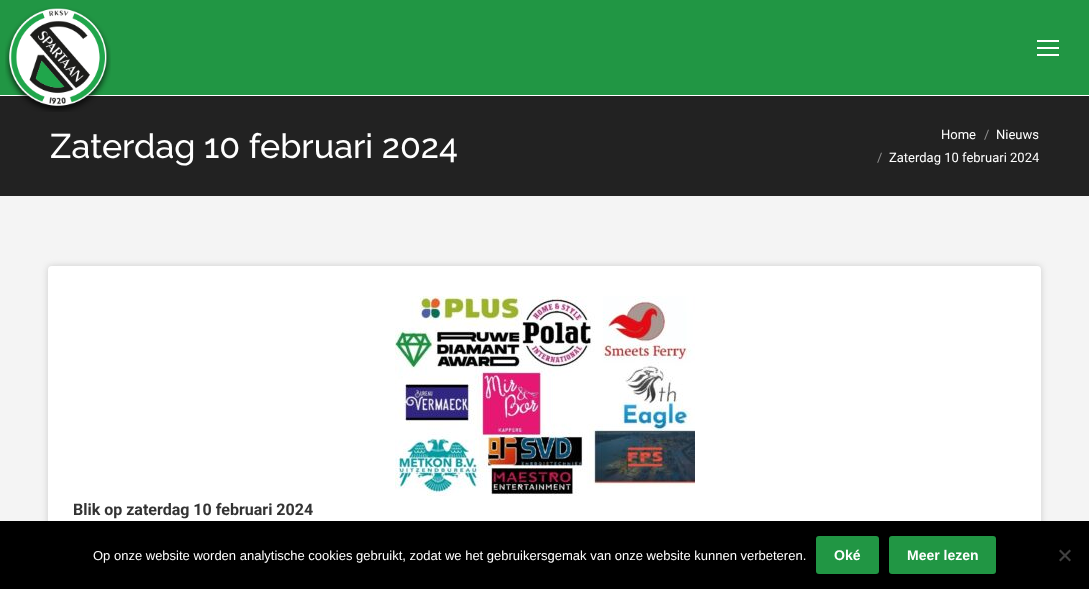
(async () => {
  const canvas = document.querySelector("canvas");
  canvas.width = 1089;
  canvas.height = 589;
  const ctx = canvas.getContext("2d");
  ctx.miterLimit = 4;
  ctx.fontKerning = "normal";
  async function loadImage(src) {
    const img = new Image();
    img.src = src;
    await img.decode();
    return img;
  }
  let path;

  ctx.fillStyle = "#f4f4f4";
  ctx.fillRect(0, 0, 1089, 589);
  for (const [x, y, w, h, color] of [
    [0, 0, 1089, 95, "#219644"],
    [0, 95, 1089, 1, "#ffffff"],
    [0, 96, 1089, 100, "#222222"],
  ]) {
    ctx.fillStyle = color;
    ctx.fillRect(x, y, w, h);
  }
  ctx.drawImage(await loadImage("img/1.png"), 5, 7, 106, 105);
  for (const [x, y, w, h, color] of [
    [1037, 40, 22, 2, "#ffffff"],
    [1037, 47, 22, 2, "#ffffff"],
    [1037, 54, 22, 2, "#ffffff"],
  ]) {
    ctx.fillStyle = color;
    ctx.fillRect(x, y, w, h);
  }
  ctx.fillStyle = "#cccccc";
  ctx.filter = "blur(3px)";
  ctx.beginPath();
  ctx.roundRect(48, 266, 993, 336, 4);
  ctx.fill();
  ctx.filter = "none";
  ctx.fillStyle = "#ffffff";
  ctx.beginPath();
  ctx.roundRect(48, 266, 993, 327, 4);
  ctx.fill();
  ctx.drawImage(await loadImage("img/2.png"), 395, 296, 300, 200);
  ctx.fillStyle = "#000000";
  ctx.fillRect(0, 521, 1089, 68);
  ctx.fillStyle = "#219644";
  ctx.beginPath();
  ctx.roundRect(816, 536, 63, 38, 3);
  ctx.fill();
  ctx.beginPath();
  ctx.roundRect(889, 536, 107, 38, 3);
  ctx.fill();
  ctx.fillStyle = "#404040";
  path = new Path2D("M1069.5 549.5L1071 551L1060.5 561.5L1059 560Z");
  ctx.fill(path);
  path = new Path2D("M1059 551L1060.5 549.5L1071 560L1069.5 561.5Z");
  ctx.fill(path);
  ctx.font = "500 34px Raleway";
  ctx.fillStyle = "#ffffff";
  ctx.fillText("Zaterdag 10 februari 2024", 50, 158);
  ctx.font = "13px Roboto";
  ctx.fillText("Home", 941, 139);
  ctx.fillStyle = "#919191";
  ctx.fillText("/", 984, 139);
  ctx.fillStyle = "#ffffff";
  ctx.fillText("Nieuws", 996, 139);
  ctx.fillStyle = "#919191";
  ctx.fillText("/", 877, 162);
  ctx.fillStyle = "#ffffff";
  ctx.fillText("Zaterdag 10 februari 2024", 889, 162);
  ctx.font = "bold 16px Roboto";
  ctx.fillStyle = "#333333";
  ctx.fillText("Blik op zaterdag 10 februari 2024", 73, 515);
  ctx.font = "13px Liberation Sans";
  ctx.fillStyle = "#ffffff";
  ctx.fillText("Op onze website worden analytische cookies gebruikt, zodat we het gebruikersgemak van onze website kunnen verbeteren.", 93, 560);
  ctx.font = "bold 14px Liberation Sans";
  ctx.fillText("Oké", 834, 560);
  ctx.fillText("Meer lezen", 907, 560);
})();
